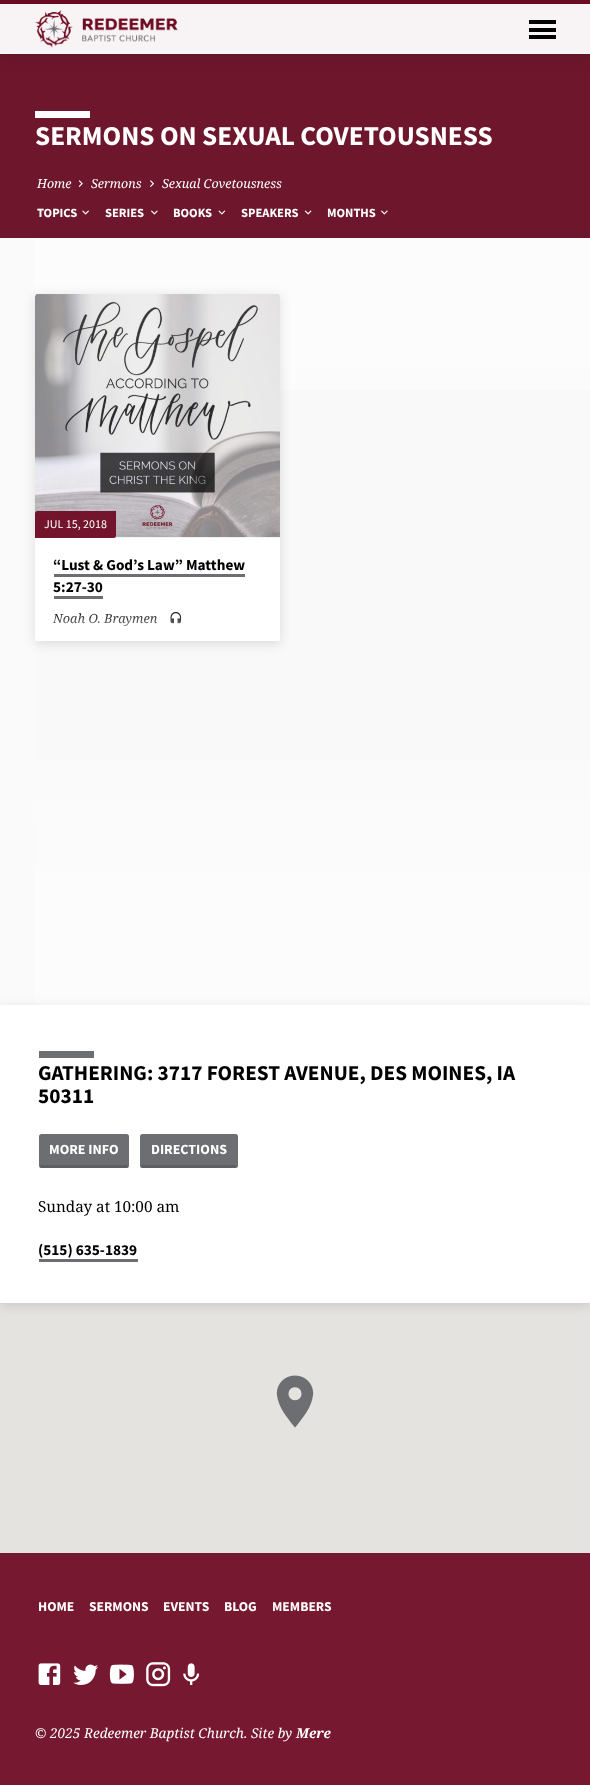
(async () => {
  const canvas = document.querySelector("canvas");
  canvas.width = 590;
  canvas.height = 1785;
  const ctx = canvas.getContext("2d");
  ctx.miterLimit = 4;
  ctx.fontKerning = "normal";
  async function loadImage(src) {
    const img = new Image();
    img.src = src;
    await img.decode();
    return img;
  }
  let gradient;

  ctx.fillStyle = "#ffffff";
  ctx.fillRect(0, 0, 590, 1785);
  ctx.fillStyle = "#6f0d24";
  ctx.fillRect(0, 0, 590, 4);
  ctx.fillStyle = "#6e162c";
  ctx.fillRect(0, 54, 590, 184);
  ctx.fillStyle = "rgba(0, 0, 0, 0.14)";
  ctx.filter = "blur(7.5px)";
  ctx.beginPath();
  ctx.rect(0, 6, 590, 50);
  ctx.fill();
  ctx.filter = "none";
  ctx.fillStyle = "#f8f3f4";
  ctx.fillRect(0, 4, 590, 50);
  ctx.drawImage(await loadImage("img/1.png"), 35, 10, 143, 38);
  for (const [x, y, w, h, color] of [
    [529, 20, 27, 4, "#000000"],
    [529, 28, 27, 4, "#000000"],
    [529, 35, 27, 4, "#000000"],
    [35, 111, 55, 7, "#ffffff"],
  ]) {
    ctx.fillStyle = color;
    ctx.fillRect(x, y, w, h);
  }
  ctx.drawImage(await loadImage("img/2.png"), 78, 180, 5, 7);
  ctx.drawImage(await loadImage("img/3.png"), 150, 180, 4, 7);
  ctx.drawImage(await loadImage("img/4.png"), 82, 210, 7, 5);
  ctx.drawImage(await loadImage("img/5.png"), 151, 210, 7, 5);
  ctx.drawImage(await loadImage("img/6.png"), 218, 210, 8, 5);
  ctx.drawImage(await loadImage("img/7.png"), 304, 210, 8, 5);
  ctx.drawImage(await loadImage("img/5.png"), 381, 210, 7, 5);
  ctx.fillStyle = "#fafafa";
  ctx.fillRect(0, 238, 35, 767);
  gradient = ctx.createLinearGradient(330, 1005, 330, 238);
  gradient.addColorStop(0.16, "#fcfcfc");
  gradient.addColorStop(0.33, "#f9f9f9");
  ctx.fillStyle = gradient;
  ctx.fillRect(35, 361, 555, 644);
  gradient = ctx.createLinearGradient(330, 237, 330, 1005);
  gradient.addColorStop(0.16, "#fcfcfc");
  gradient.addColorStop(0.33, "rgba(252, 252, 252, 0)");
  ctx.fillStyle = gradient;
  ctx.fillRect(35, 238, 555, 152);
  ctx.fillStyle = "rgba(0, 0, 0, 0.12)";
  ctx.filter = "blur(6px)";
  ctx.beginPath();
  ctx.roundRect(35, 296, 245, 348, 2.5);
  ctx.fill();
  ctx.filter = "none";
  ctx.fillStyle = "#ffffff";
  ctx.beginPath();
  ctx.roundRect(35, 294, 245, 347, 2.5);
  ctx.fill();
  ctx.drawImage(await loadImage("img/8.png"), 35, 294, 245, 244);
  ctx.fillStyle = "rgba(111, 12, 36, 0.95)";
  ctx.beginPath();
  ctx.roundRect(35, 511, 81, 27, [2.5, 0, 2.5, 0]);
  ctx.fill();
  ctx.fillStyle = "#6d6e71";
  ctx.fillRect(54, 574, 191, 3);
  ctx.fillRect(54, 596, 49, 3);
  ctx.drawImage(await loadImage("img/9.png"), 170, 612, 12, 12);
  ctx.fillStyle = "#e5e3df";
  ctx.fillRect(0, 1303, 590, 250);
  ctx.fillStyle = "rgba(0, 0, 0, 0.12)";
  ctx.filter = "blur(6px)";
  ctx.beginPath();
  ctx.roundRect(0, 1008, 590, 297, 2.5);
  ctx.fill();
  ctx.filter = "none";
  ctx.fillStyle = "#ffffff";
  ctx.beginPath();
  ctx.roundRect(0, 1005, 590, 298, 2.5);
  ctx.fill();
  ctx.fillStyle = "#6d6e71";
  ctx.fillRect(39, 1051, 55, 7);
  ctx.beginPath();
  ctx.roundRect(39, 1134, 90, 34, 2.5);
  ctx.fill();
  ctx.fillStyle = "rgba(50, 50, 50, 0.25)";
  ctx.fillRect(40, 1165, 88, 3);
  ctx.fillStyle = "#6d6e71";
  ctx.beginPath();
  ctx.roundRect(140, 1134, 98, 34, 2.5);
  ctx.fill();
  ctx.fillStyle = "rgba(50, 50, 50, 0.25)";
  ctx.fillRect(141, 1165, 95, 3);
  ctx.fillStyle = "#6d6e71";
  ctx.fillRect(39, 1259, 99, 3);
  ctx.drawImage(await loadImage("img/10.png"), 276, 1375, 38, 53);
  ctx.fillStyle = "#76182f";
  ctx.fillRect(0, 1553, 590, 232);
  ctx.drawImage(await loadImage("img/11.png"), 38, 1663, 23, 22);
  ctx.drawImage(await loadImage("img/12.png"), 73, 1664, 25, 21);
  ctx.drawImage(await loadImage("img/13.png"), 109, 1664, 25, 20);
  ctx.drawImage(await loadImage("img/14.png"), 146, 1662, 25, 25);
  ctx.drawImage(await loadImage("img/15.png"), 183, 1663, 17, 22);
  ctx.font = "bold 27.25px Source Sans Pro";
  ctx.fillStyle = "#ffffff";
  ctx.fillText("SERMONS ON SEXUAL COVETOUSNESS", 35, 145);
  ctx.font = "italic 12.5px Noto Serif";
  for (const [text, x, y] of [
    ["Home", 37, 188],
    ["Sermons", 91, 188],
    ["Sexual Covetousness", 162, 188],
  ]) {
    ctx.fillText(text, x, y);
  }
  ctx.font = "bold 12.5px Source Sans Pro";
  for (const [text, x, y] of [
    ["TOPICS", 37, 217],
    ["SERIES", 105, 217],
    ["BOOKS", 173, 217],
    ["SPEAKERS", 241, 217],
    ["MONTHS", 327, 217],
  ]) {
    ctx.fillText(text, x, y);
  }
  ctx.font = "12px Source Sans Pro";
  ctx.fillText("JUL 15, 2018", 44, 528);
  ctx.font = "bold 15.25px Source Sans Pro";
  ctx.fillStyle = "#000000";
  ctx.fillText("“Lust & God’s Law” Matthew", 53, 570);
  ctx.fillText("5:27-30", 53, 592);
  ctx.font = "italic 12.75px Noto Serif";
  ctx.fillText("Noah O. Braymen", 53, 623);
  gradient = ctx.createLinearGradient(158, 610, 158, 641);
  gradient.addColorStop(0, "rgba(255, 255, 255, 0)");
  gradient.addColorStop(1, "rgba(255, 255, 255, 0.9)");
  ctx.fillStyle = gradient;
  ctx.beginPath();
  ctx.roundRect(35, 610, 245, 31, [0, 0, 2.5, 2.5]);
  ctx.fill();
  ctx.font = "bold 21.25px Source Sans Pro";
  ctx.fillStyle = "#000000";
  ctx.fillText("GATHERING: 3717 FOREST AVENUE, DES MOINES, IA", 38, 1080);
  ctx.fillText("50311", 38, 1103);
  ctx.font = "bold 14px Source Sans Pro";
  ctx.fillStyle = "#ffffff";
  ctx.fillText("MORE INFO", 49, 1154);
  ctx.fillText("DIRECTIONS", 151, 1154);
  ctx.font = "15.25px Noto Serif";
  ctx.fillStyle = "#000000";
  ctx.fillText("Sunday at 10:00 am", 38, 1212);
  ctx.font = "bold 15.25px Source Sans Pro";
  ctx.fillText("(515) 635-1839", 38, 1255);
  ctx.font = "bold 13.6px Source Sans Pro";
  ctx.fillStyle = "#ffffff";
  for (const [text, x, y] of [
    ["HOME", 38, 1611],
    ["SERMONS", 89, 1611],
    ["EVENTS", 163, 1611],
    ["BLOG", 224, 1611],
    ["MEMBERS", 272, 1611],
  ]) {
    ctx.fillText(text, x, y);
  }
  ctx.font = "italic 13.6px Noto Serif";
  ctx.fillText("© 2025 Redeemer Baptist Church. Site by", 35, 1738);
  ctx.font = "italic bold 13.6px Noto Serif";
  ctx.fillText("Mere", 296, 1738);
})();
